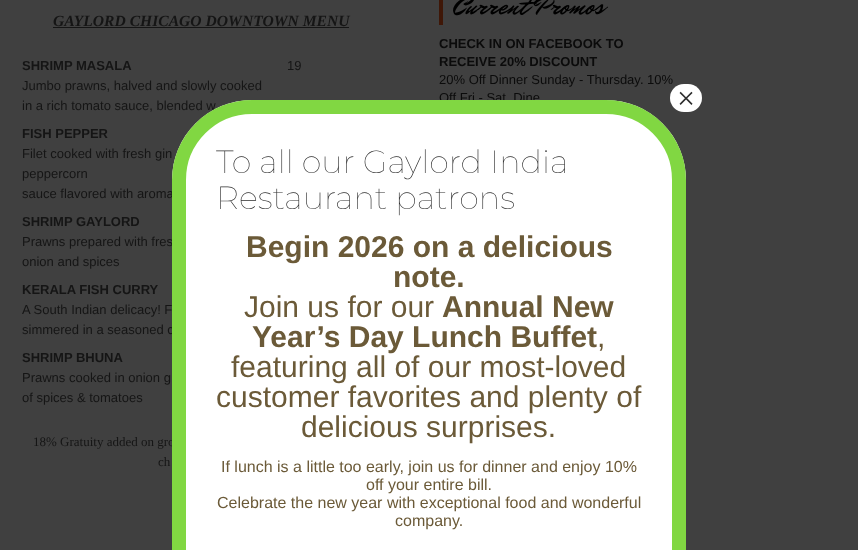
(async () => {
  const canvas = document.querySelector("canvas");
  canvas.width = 858;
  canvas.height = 550;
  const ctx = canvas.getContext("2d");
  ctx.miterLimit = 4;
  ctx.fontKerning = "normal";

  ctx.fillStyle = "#404040";
  ctx.fillRect(0, 0, 858, 550);
  ctx.fillStyle = "#151515";
  ctx.fillRect(53, 27, 296, 1);
  ctx.fillStyle = "#3f1707";
  ctx.fillRect(439, 0, 4, 25);
  ctx.font = "italic bold 15.6px Liberation Serif";
  ctx.fillStyle = "#151515";
  ctx.fillText("GAYLORD CHICAGO DOWNTOWN MENU", 53, 26);
  ctx.font = "bold 13px Liberation Sans";
  ctx.fillText("SHRIMP MASALA", 22, 70);
  ctx.font = "13px Liberation Sans";
  for (const [text, x, y] of [
    ["Jumbo prawns, halved and slowly cooked", 22, 90],
    ["in a rich tomato sauce, blended w", 22, 110],
    ["19", 287, 70],
  ]) {
    ctx.fillText(text, x, y);
  }
  ctx.font = "bold 13px Liberation Sans";
  ctx.fillText("FISH PEPPER", 22, 138);
  ctx.font = "13px Liberation Sans";
  for (const [text, x, y] of [
    ["Filet cooked with fresh gin", 22, 158],
    ["peppercorn", 22, 178],
    ["sauce flavored with aroma", 22, 198],
  ]) {
    ctx.fillText(text, x, y);
  }
  ctx.font = "bold 13px Liberation Sans";
  ctx.fillText("SHRIMP GAYLORD", 22, 226);
  ctx.font = "13px Liberation Sans";
  ctx.fillText("Prawns prepared with fres", 22, 246);
  ctx.fillText("onion and spices", 22, 266);
  ctx.font = "bold 13px Liberation Sans";
  ctx.fillText("KERALA FISH CURRY", 22, 294);
  ctx.font = "13px Liberation Sans";
  ctx.fillText("A South Indian delicacy! F", 22, 314);
  ctx.fillText("simmered in a seasoned c", 22, 334);
  ctx.font = "bold 13px Liberation Sans";
  ctx.fillText("SHRIMP BHUNA", 22, 362);
  ctx.font = "13px Liberation Sans";
  ctx.fillText("Prawns cooked in onion g", 22, 382);
  ctx.fillText("of spices & tomatoes", 22, 402);
  ctx.font = "13px Liberation Serif";
  ctx.fillText("18% Gratuity added on gro", 33, 446);
  ctx.fillText("ch", 158, 466);
  ctx.font = "26px Mr Dafoe";
  ctx.fillStyle = "#000000";
  ctx.fillText("Current Promos", 453, 14);
  ctx.font = "bold 13px Liberation Sans";
  ctx.fillStyle = "#0b0b0b";
  ctx.fillText("CHECK IN ON FACEBOOK TO", 439, 48);
  ctx.fillText("RECEIVE 20% DISCOUNT", 439, 66);
  ctx.font = "13px Liberation Sans";
  ctx.fillText("20% Off Dinner Sunday - Thursday. 10%", 439, 84);
  ctx.fillText("Off Fri - Sat. Dine", 439, 102);
  ctx.fillStyle = "#ffffff";
  ctx.beginPath();
  ctx.roundRect(172, 100, 514, 450, [80, 80, 0, 0]);
  ctx.fill();
  ctx.beginPath();
  ctx.roundRect(179, 107, 500, 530, 73);
  ctx.strokeStyle = "#81d742";
  ctx.lineWidth = 14;
  ctx.stroke();
  ctx.beginPath();
  ctx.roundRect(670, 84, 32, 28, 14);
  ctx.fill();
  ctx.font = "32px Liberation Serif";
  ctx.fillStyle = "#2d2d2d";
  ctx.fillText("×", 677, 109);
  ctx.font = "100 32px Montserrat";
  ctx.fillText("To all our Gaylord India", 216, 173);
  ctx.fillText("Restaurant patrons", 216, 209);
  ctx.font = "bold 30px Liberation Sans";
  ctx.fillStyle = "#6b5a38";
  ctx.fillText("Begin 2026 on a delicious", 246, 257);
  ctx.fillText("note.", 393, 287);
  ctx.font = "30px Liberation Sans";
  ctx.fillText("Join us for our", 244, 317);
  ctx.font = "bold 30px Liberation Sans";
  ctx.fillText("Annual New", 442, 317);
  ctx.fillText("Year’s Day Lunch Buffet", 252, 347);
  ctx.font = "30px Liberation Sans";
  for (const [text, x, y] of [
    [",", 597, 347],
    ["featuring all of our most-loved", 231, 377],
    ["customer favorites and plenty of", 216, 407],
    ["delicious surprises.", 301, 437],
  ]) {
    ctx.fillText(text, x, y);
  }
  ctx.font = "16px Liberation Sans";
  for (const [text, x, y] of [
    ["If lunch is a little too early, join us for dinner and enjoy 10%", 221, 472],
    ["off your entire bill.", 366, 490],
    ["Celebrate the new year with exceptional food and wonderful", 217, 508],
    ["company.", 395, 526],
  ]) {
    ctx.fillText(text, x, y);
  }
})();
